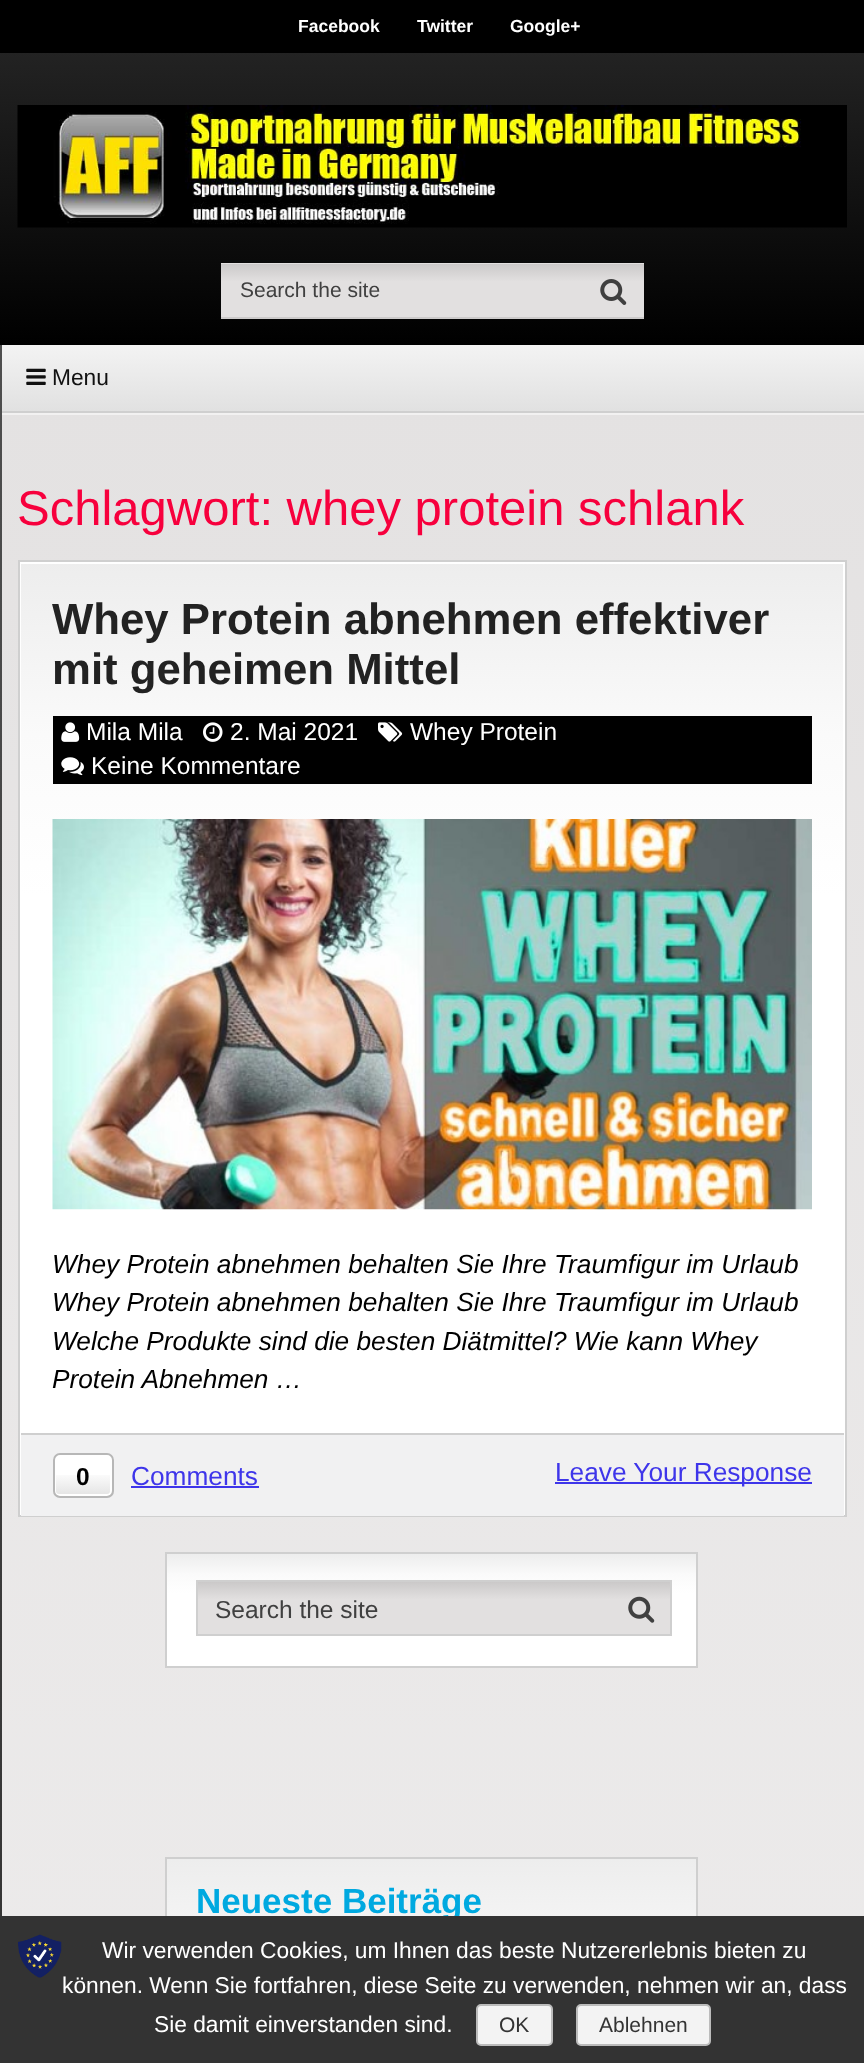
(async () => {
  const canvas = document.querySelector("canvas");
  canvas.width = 864;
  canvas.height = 2063;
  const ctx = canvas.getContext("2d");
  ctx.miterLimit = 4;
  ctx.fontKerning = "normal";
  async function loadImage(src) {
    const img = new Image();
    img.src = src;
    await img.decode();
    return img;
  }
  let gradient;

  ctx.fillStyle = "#ffffff";
  ctx.fillRect(0, 0, 864, 2063);
  gradient = ctx.createLinearGradient(432, 0, 432, 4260);
  gradient.addColorStop(0, "#e2e0e0");
  gradient.addColorStop(1, "#f7f6f6");
  ctx.fillStyle = gradient;
  ctx.fillRect(2, 415, 862, 1501);
  gradient = ctx.createLinearGradient(432, 0, 432, 345);
  gradient.addColorStop(0, "#292929");
  gradient.addColorStop(1, "#000000");
  ctx.fillStyle = gradient;
  ctx.fillRect(0, 53, 864, 292);
  ctx.fillStyle = "#000000";
  ctx.fillRect(0, 0, 864, 53);
  ctx.drawImage(await loadImage("img/1.png"), 17, 105, 830, 123);
  gradient = ctx.createLinearGradient(432, 212, 432, 264);
  gradient.addColorStop(0, "#cbc9c9");
  gradient.addColorStop(0.33, "#e2e0e0");
  gradient.addColorStop(1, "#e2e0e0");
  ctx.fillStyle = gradient;
  ctx.fillRect(221, 263, 423, 1);
  gradient = ctx.createLinearGradient(432, 264, 432, 317);
  gradient.addColorStop(0, "#cbc9c9");
  gradient.addColorStop(0.33, "#e2e0e0");
  gradient.addColorStop(1, "#e2e0e0");
  ctx.fillStyle = gradient;
  ctx.fillRect(221, 264, 423, 53);
  gradient = ctx.createLinearGradient(432, 317, 432, 369);
  gradient.addColorStop(0, "#cbc9c9");
  gradient.addColorStop(0.33, "#e2e0e0");
  gradient.addColorStop(1, "#e2e0e0");
  ctx.fillStyle = gradient;
  ctx.fillRect(221, 317, 423, 2);
  ctx.drawImage(await loadImage("img/2.png"), 600, 279, 27, 26);
  gradient = ctx.createLinearGradient(432, 345, 432, 411);
  gradient.addColorStop(0, "#f3f3f3");
  gradient.addColorStop(1, "#e1e1e1");
  ctx.fillStyle = gradient;
  ctx.fillRect(2, 345, 862, 66);
  ctx.fillStyle = "#cfcfcf";
  ctx.fillRect(0, 411, 864, 2);
  ctx.fillStyle = "#f2f1f1";
  ctx.fillRect(0, 413, 864, 2);
  gradient = ctx.createLinearGradient(-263, 0, -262, 2063);
  gradient.addColorStop(0, "#545454");
  gradient.addColorStop(1, "#333333");
  ctx.fillStyle = gradient;
  ctx.fillRect(0, 345, 2, 1571);
  ctx.drawImage(await loadImage("img/3.png"), 26, 368, 20, 17);
  gradient = ctx.createLinearGradient(432, 562, 432, 1516);
  gradient.addColorStop(0, "#ededed");
  gradient.addColorStop(0.18, "#fafafa");
  gradient.addColorStop(0.35, "#ffffff");
  gradient.addColorStop(1, "#ffffff");
  ctx.fillStyle = gradient;
  ctx.fillRect(21, 564, 822, 869);
  ctx.strokeStyle = "#ffffff";
  ctx.lineWidth = 2;
  ctx.strokeRect(20, 563, 824, 952);
  ctx.strokeStyle = "#cfcfcf";
  ctx.strokeRect(19, 561, 827, 955);
  ctx.fillStyle = "#000000";
  ctx.fillRect(53, 716, 759, 68);
  ctx.drawImage(await loadImage("img/4.png"), 61, 722, 19, 20);
  ctx.drawImage(await loadImage("img/5.png"), 203, 722, 20, 20);
  ctx.drawImage(await loadImage("img/6.png"), 378, 722, 25, 20);
  ctx.drawImage(await loadImage("img/7.png"), 61, 757, 23, 19);
  ctx.drawImage(await loadImage("img/8.png"), 52, 819, 760, 391);
  ctx.fillStyle = "#f1f1f2";
  ctx.fillRect(21, 1435, 823, 81);
  ctx.fillStyle = "#cfcfcf";
  ctx.fillRect(21, 1433, 823, 2);
  ctx.save();
  ctx.beginPath();
  ctx.roundRect(53, 1453, 61, 45, 7);
  ctx.clip();
  gradient = ctx.createLinearGradient(83, 1454, 83, 1496);
  gradient.addColorStop(0, "#ffffff");
  gradient.addColorStop(0.5, "#ffffff");
  gradient.addColorStop(0.51, "#fafafa");
  gradient.addColorStop(1, "#e3e3e3");
  ctx.fillStyle = gradient;
  ctx.fillRect(53, 1454, 61, 42);
  ctx.restore();
  ctx.beginPath();
  ctx.roundRect(55, 1455, 56, 40, 4);
  ctx.strokeStyle = "#ffffff";
  ctx.stroke();
  ctx.beginPath();
  ctx.roundRect(54, 1454, 59, 43, 6);
  ctx.strokeStyle = "#b7b7b7";
  ctx.stroke();
  ctx.fillStyle = "#3e35ea";
  ctx.fillRect(131, 1486, 128, 2);
  ctx.fillRect(555, 1482, 257, 2);
  gradient = ctx.createLinearGradient(431, 1554, 431, 1666);
  gradient.addColorStop(0, "#ededed");
  gradient.addColorStop(0.18, "#fafafa");
  gradient.addColorStop(0.35, "#ffffff");
  gradient.addColorStop(1, "#ffffff");
  ctx.fillStyle = gradient;
  ctx.fillRect(167, 1554, 529, 112);
  ctx.strokeStyle = "#cfcfcf";
  ctx.strokeRect(166, 1553, 531, 114);
  gradient = ctx.createLinearGradient(434, 1582, 434, 1635);
  gradient.addColorStop(0, "#cbc9c9");
  gradient.addColorStop(0.33, "#e2e0e0");
  gradient.addColorStop(1, "#e2e0e0");
  ctx.fillStyle = gradient;
  ctx.fillRect(198, 1582, 472, 52);
  ctx.strokeRect(197, 1581, 474, 54);
  ctx.drawImage(await loadImage("img/9.png"), 628, 1596, 27, 27);
  gradient = ctx.createLinearGradient(431, 1859, 431, 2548);
  gradient.addColorStop(0, "#ededed");
  gradient.addColorStop(0.18, "#fafafa");
  gradient.addColorStop(0.35, "#ffffff");
  gradient.addColorStop(1, "#ffffff");
  ctx.fillStyle = gradient;
  ctx.fillRect(167, 1859, 529, 57);
  ctx.strokeRect(166, 1858, 531, 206);
  ctx.font = "bold 17.5px Liberation Sans";
  ctx.fillStyle = "#ffffff";
  for (const [text, x, y] of [
    ["Facebook", 298, 32],
    ["Twitter", 417, 32],
    ["Google+", 510, 32],
  ]) {
    ctx.fillText(text, x, y);
  }
  ctx.font = "21px Liberation Sans";
  ctx.fillStyle = "#404040";
  ctx.fillText("Search the site", 240, 297);
  ctx.font = "22.75px Liberation Sans";
  ctx.fillStyle = "#111111";
  ctx.fillText("Menu", 52, 385);
  ctx.font = "49px Liberation Sans";
  ctx.fillStyle = "#f7003d";
  ctx.fillText("Schlagwort: whey protein schlank", 17, 525);
  ctx.font = "bold 43.75px Liberation Sans";
  ctx.fillStyle = "#222222";
  ctx.fillText("Whey Protein abnehmen effektiver", 52, 634);
  ctx.fillText("mit geheimen Mittel", 52, 684);
  ctx.font = "24.5px Liberation Sans";
  ctx.fillStyle = "#ffffff";
  for (const [text, x, y] of [
    ["Mila Mila", 86, 740],
    ["2. Mai 2021", 230, 740],
    ["Whey Protein", 410, 740],
    ["Keine Kommentare", 91, 774],
  ]) {
    ctx.fillText(text, x, y);
  }
  ctx.font = "italic 26.25px Liberation Sans";
  ctx.fillStyle = "#000000";
  for (const [text, x, y] of [
    ["Whey Protein abnehmen behalten Sie Ihre Traumfigur im Urlaub", 52, 1273],
    ["Whey Protein abnehmen behalten Sie Ihre Traumfigur im Urlaub", 52, 1311],
    ["Welche Produkte sind die besten Diätmittel? Wie kann Whey", 52, 1350],
    ["Protein Abnehmen …", 52, 1388],
  ]) {
    ctx.fillText(text, x, y);
  }
  ctx.font = "bold 24.5px Liberation Sans";
  ctx.fillText("0", 76, 1485);
  ctx.font = "26.25px Liberation Sans";
  ctx.fillStyle = "#3e35ea";
  ctx.fillText("Comments", 131, 1485);
  ctx.fillText("Leave Your Response", 555, 1481);
  ctx.font = "24.5px Liberation Sans";
  ctx.fillStyle = "#404040";
  ctx.fillText("Search the site", 215, 1618);
  ctx.font = "bold 35px Liberation Sans";
  ctx.fillStyle = "#00a9e0";
  ctx.fillText("Neueste Beiträge", 196, 1913);
  ctx.fillStyle = "#333333";
  ctx.fillRect(0, 1916, 864, 147);
  ctx.drawImage(await loadImage("img/10.png"), 18, 1934, 44, 44);
  ctx.font = "22.75px Liberation Sans";
  ctx.fillStyle = "#ffffff";
  for (const [text, x, y] of [
    ["Wir verwenden Cookies, um Ihnen das beste Nutzererlebnis bieten zu", 102, 1958],
    ["können. Wenn Sie fortfahren, diese Seite zu verwenden, nehmen wir an, dass", 62, 1993],
    ["Sie damit einverstanden sind.", 154, 2032],
  ]) {
    ctx.fillText(text, x, y);
  }
  ctx.fillStyle = "#f3f3f3";
  ctx.beginPath();
  ctx.roundRect(477, 2005, 75, 40, 4);
  ctx.fill();
  ctx.strokeStyle = "#bbbbbb";
  ctx.stroke();
  ctx.font = "21px Liberation Sans";
  ctx.fillStyle = "#333333";
  ctx.fillText("OK", 499, 2032);
  ctx.fillStyle = "#f3f3f3";
  ctx.beginPath();
  ctx.roundRect(577, 2005, 133, 40, 4);
  ctx.fill();
  ctx.stroke();
  ctx.fillStyle = "#333333";
  ctx.fillText("Ablehnen", 599, 2032);
})();
